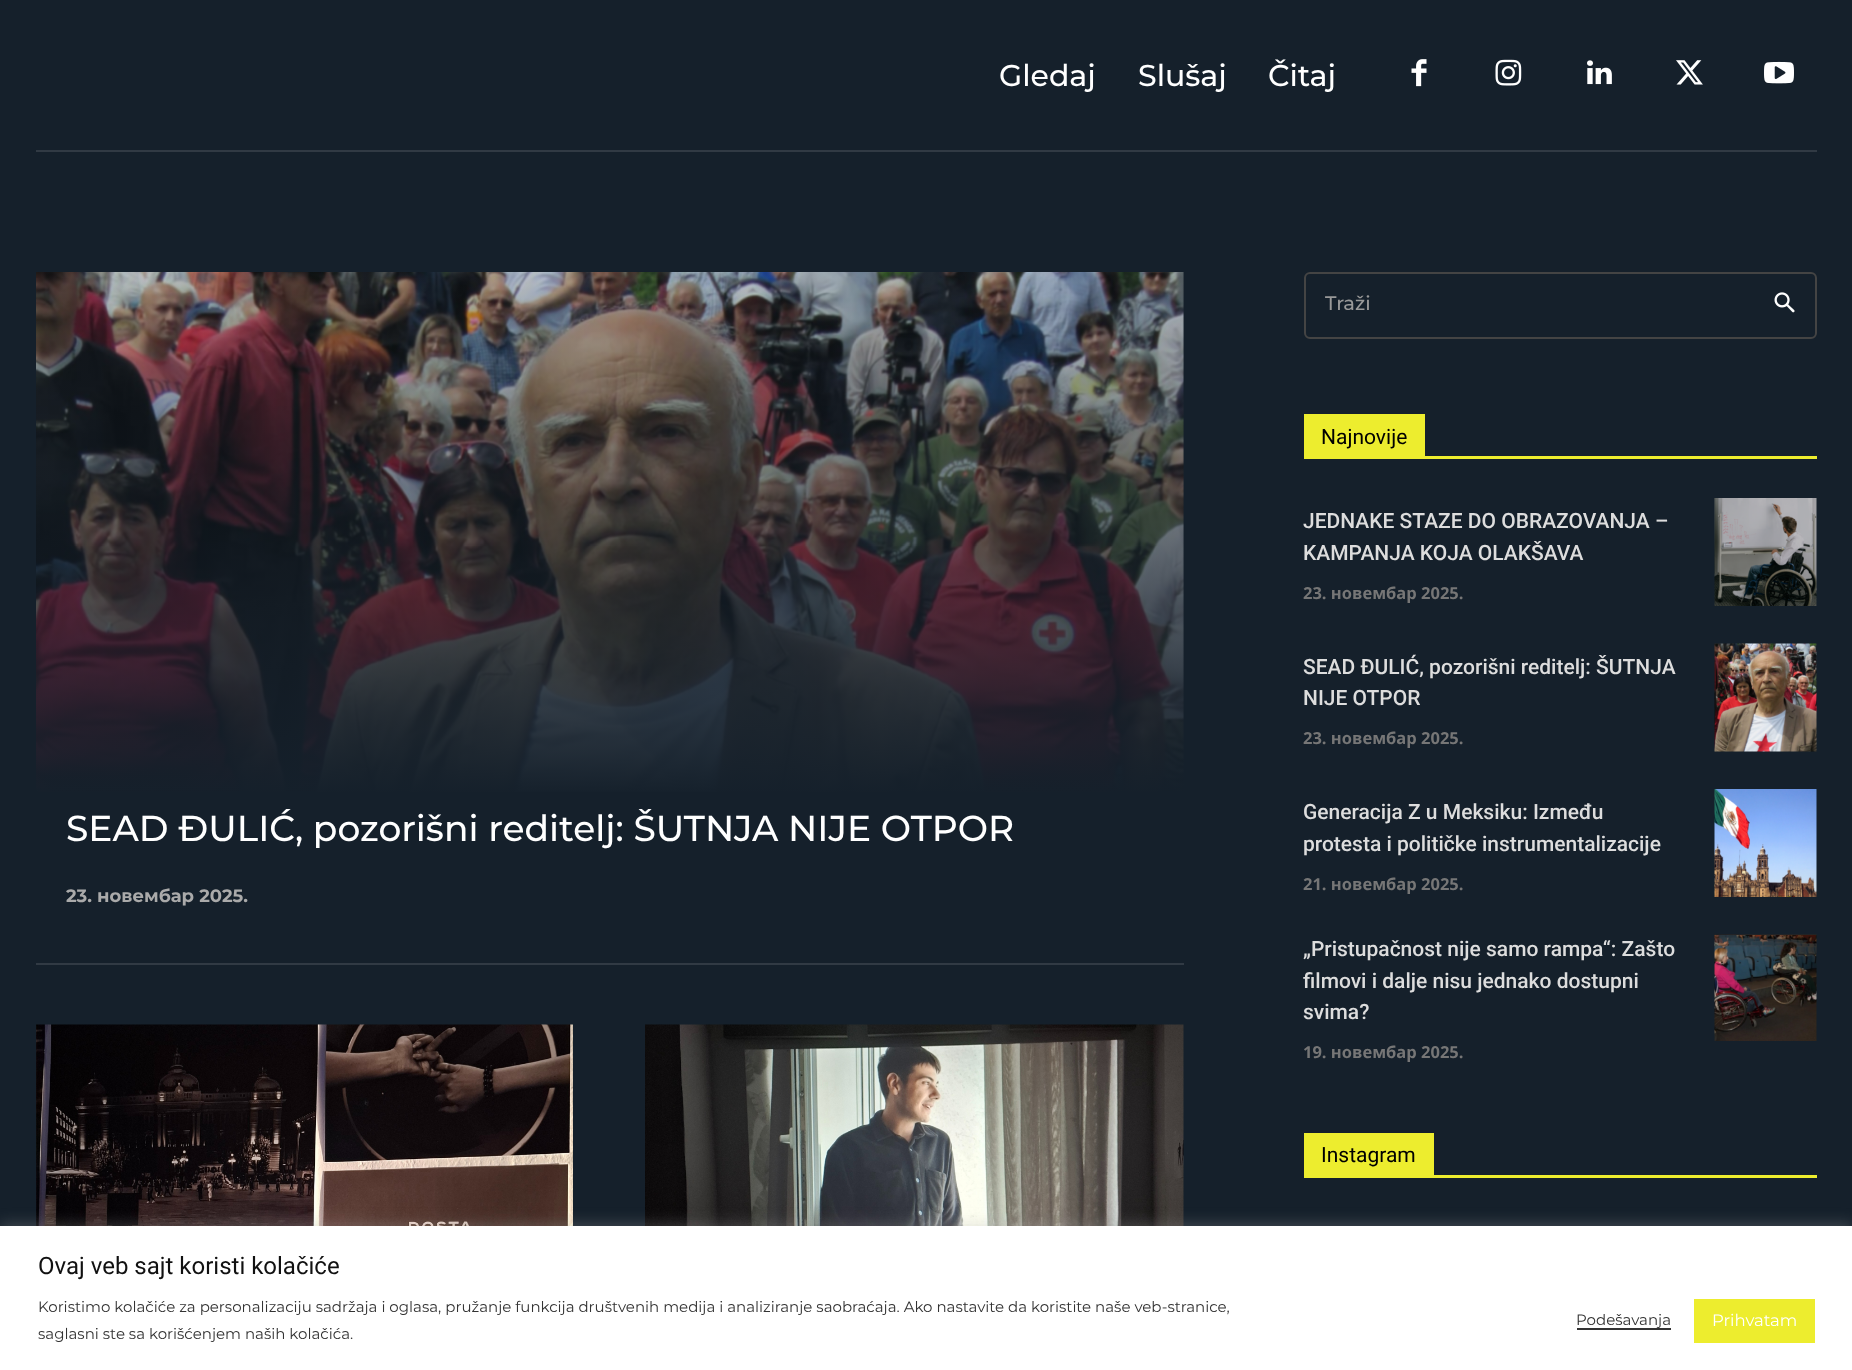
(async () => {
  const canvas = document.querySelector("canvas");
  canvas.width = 1852;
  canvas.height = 1370;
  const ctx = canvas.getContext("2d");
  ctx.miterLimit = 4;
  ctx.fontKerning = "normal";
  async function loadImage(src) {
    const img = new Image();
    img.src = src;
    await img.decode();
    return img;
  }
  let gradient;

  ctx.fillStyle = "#15202b";
  ctx.fillRect(0, 0, 1852, 1370);
  ctx.drawImage(await loadImage("img/1.png"), 1411, 59, 16, 28);
  ctx.drawImage(await loadImage("img/2.png"), 1495, 59, 27, 27);
  ctx.drawImage(await loadImage("img/3.png"), 1587, 60, 25, 25);
  ctx.drawImage(await loadImage("img/4.png"), 1676, 60, 27, 25);
  ctx.drawImage(await loadImage("img/5.png"), 1764, 61, 30, 23);
  ctx.fillStyle = "#313a44";
  ctx.fillRect(36, 150, 1781, 2);
  ctx.drawImage(await loadImage("img/6.png"), 36, 272, 1148, 520);
  gradient = ctx.createLinearGradient(610, 903, 610, 272);
  gradient.addColorStop(0, "#15202b");
  gradient.addColorStop(0.17, "#15202b");
  gradient.addColorStop(1, "rgba(21, 32, 43, 0.25)");
  ctx.fillStyle = gradient;
  ctx.fillRect(36, 272, 1148, 520);
  ctx.fillStyle = "#313a44";
  ctx.fillRect(36, 963, 1148, 2);
  ctx.drawImage(await loadImage("img/7.png"), 36, 1024, 537, 202);
  ctx.drawImage(await loadImage("img/8.png"), 645, 1024, 539, 202);
  ctx.beginPath();
  ctx.roundRect(1305, 273, 511, 65, 5);
  ctx.strokeStyle = "#444444";
  ctx.lineWidth = 2;
  ctx.stroke();
  ctx.drawImage(await loadImage("img/9.png"), 1774, 292, 21, 21);
  ctx.fillStyle = "#eded2e";
  ctx.fillRect(1304, 456, 513, 3);
  ctx.fillRect(1304, 414, 121, 42);
  ctx.drawImage(await loadImage("img/10.png"), 1714, 498, 103, 108);
  ctx.drawImage(await loadImage("img/11.png"), 1714, 643, 103, 109);
  ctx.drawImage(await loadImage("img/12.png"), 1714, 789, 103, 108);
  ctx.drawImage(await loadImage("img/13.png"), 1714, 934, 103, 107);
  ctx.fillRect(1304, 1175, 513, 3);
  ctx.fillRect(1304, 1133, 130, 42);
  ctx.fillStyle = "rgba(172, 171, 171, 0.3)";
  ctx.filter = "blur(7.5px)";
  ctx.beginPath();
  ctx.rect(0, 1224, 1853, 146);
  ctx.fill();
  ctx.filter = "none";
  for (const [x, y, w, h, color] of [
    [0, 1226, 1852, 144, "#ffffff"],
    [1577, 1328, 94, 2, "#333333"],
    [1694, 1299, 121, 44, "#eded2e"],
  ]) {
    ctx.fillStyle = color;
    ctx.fillRect(x, y, w, h);
  }
  ctx.font = "500 30px Montserrat";
  ctx.fillStyle = "#ffffff";
  for (const [text, x, y] of [
    ["Gledaj", 999, 86],
    ["Slušaj", 1138, 86],
    ["Čitaj", 1268, 86],
  ]) {
    ctx.fillText(text, x, y);
  }
  ctx.font = "500 36px Montserrat";
  ctx.fillText("SEAD ĐULIĆ, pozorišni reditelj: ŠUTNJA NIJE OTPOR", 66, 841);
  ctx.font = "bold 18px Montserrat";
  ctx.fillStyle = "#aaaaaa";
  ctx.fillText("23. новембар 2025.", 66, 902);
  ctx.font = "500 19.5px Montserrat";
  ctx.fillStyle = "#999999";
  ctx.fillText("Traži", 1325, 310);
  ctx.font = "21px Roboto";
  ctx.fillStyle = "#000000";
  ctx.fillText("Najnovije", 1321, 444);
  ctx.font = "500 21px Roboto";
  ctx.fillStyle = "#dddddd";
  ctx.fillText("JEDNAKE STAZE DO OBRAZOVANJA –", 1303, 528);
  ctx.fillText("KAMPANJA KOJA OLAKŠAVA", 1303, 560);
  ctx.font = "bold 16.5px Open Sans";
  ctx.fillStyle = "#767676";
  ctx.fillText("23. новембар 2025.", 1303, 599);
  ctx.font = "500 21px Roboto";
  ctx.fillStyle = "#dddddd";
  ctx.fillText("SEAD ĐULIĆ, pozorišni reditelj: ŠUTNJA", 1303, 674);
  ctx.fillText("NIJE OTPOR", 1303, 705);
  ctx.font = "bold 16.5px Open Sans";
  ctx.fillStyle = "#767676";
  ctx.fillText("23. новембар 2025.", 1303, 744);
  ctx.font = "500 21px Roboto";
  ctx.fillStyle = "#dddddd";
  ctx.fillText("Generacija Z u Meksiku: Između", 1303, 819);
  ctx.fillText("protesta i političke instrumentalizacije", 1303, 851);
  ctx.font = "bold 16.5px Open Sans";
  ctx.fillStyle = "#767676";
  ctx.fillText("21. новембар 2025.", 1303, 890);
  ctx.font = "500 21px Roboto";
  ctx.fillStyle = "#dddddd";
  for (const [text, x, y] of [
    ["„Pristupačnost nije samo rampa“: Zašto", 1303, 956],
    ["filmovi i dalje nisu jednako dostupni", 1303, 988],
    ["svima?", 1303, 1019],
  ]) {
    ctx.fillText(text, x, y);
  }
  ctx.font = "bold 16.5px Open Sans";
  ctx.fillStyle = "#767676";
  ctx.fillText("19. новембар 2025.", 1303, 1058);
  ctx.font = "21px Roboto";
  ctx.fillStyle = "#000000";
  ctx.fillText("Instagram", 1321, 1162);
  ctx.font = "24px Roboto";
  ctx.fillStyle = "#111111";
  ctx.fillText("Ovaj veb sajt koristi kolačiće", 38, 1274);
  ctx.font = "15px Montserrat";
  ctx.fillStyle = "#333333";
  for (const [text, x, y] of [
    ["Koristimo kolačiće za personalizaciju sadržaja i oglasa, pružanje funkcija društvenih medija i analiziranje saobraćaja. Ako nastavite da koristite naše veb-stranice,", 38, 1312],
    ["saglasni ste sa korišćenjem naših kolačića.", 38, 1339],
    ["Podešavanja", 1576, 1325],
  ]) {
    ctx.fillText(text, x, y);
  }
  ctx.font = "16.5px Montserrat";
  ctx.fillStyle = "#ffffff";
  ctx.fillText("Prihvatam", 1712, 1326);
})();
